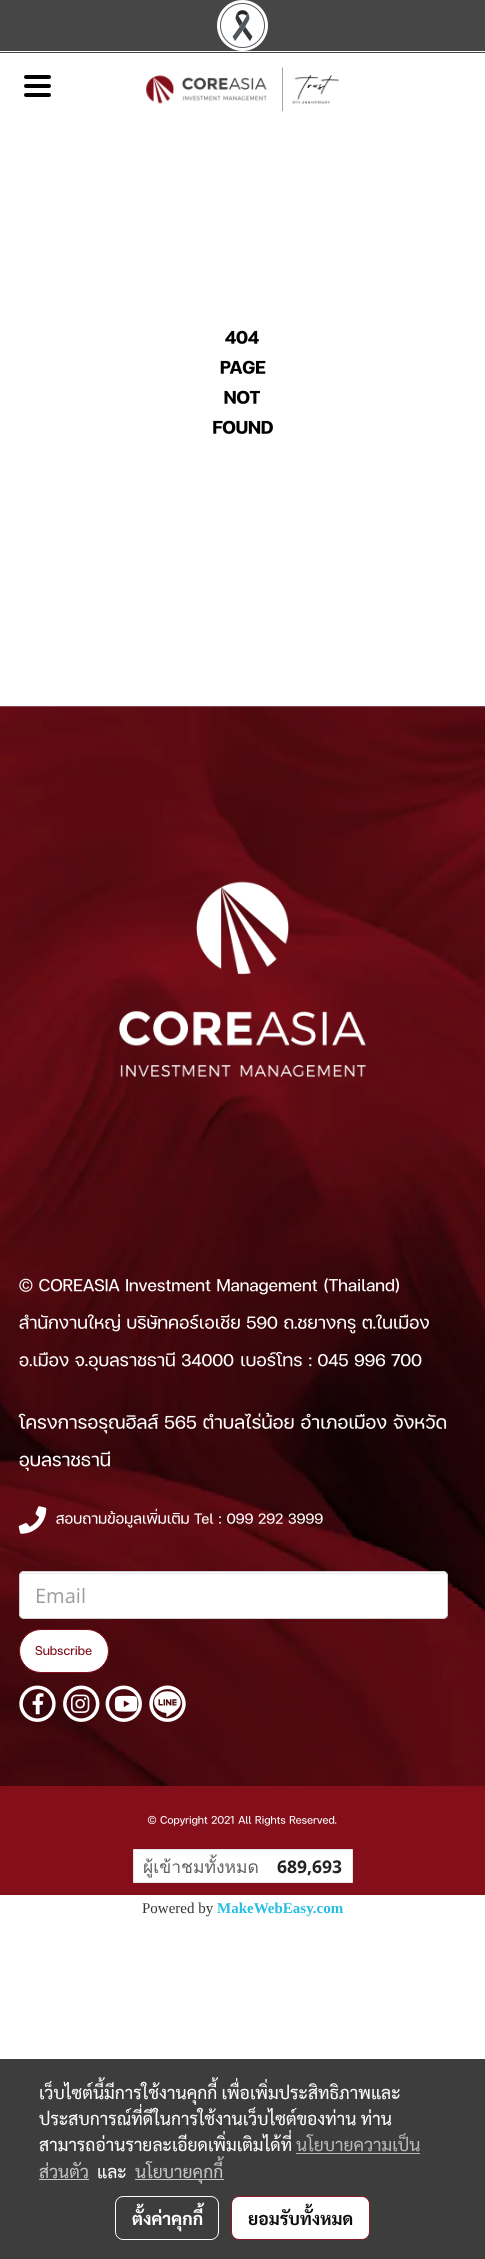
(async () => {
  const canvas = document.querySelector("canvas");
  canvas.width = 485;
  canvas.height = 2259;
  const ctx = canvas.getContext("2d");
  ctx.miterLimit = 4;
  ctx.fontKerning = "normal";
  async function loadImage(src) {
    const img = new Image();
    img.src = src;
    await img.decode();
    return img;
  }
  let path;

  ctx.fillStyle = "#ffffff";
  ctx.fillRect(0, 0, 485, 2259);
  for (const [x, y, w, h, color] of [
    [0, 2059, 485, 200, "#3d3d3d"],
    [0, 0, 485, 53, "#464646"],
    [0, 51, 485, 1, "#ffffff"],
  ]) {
    ctx.fillStyle = color;
    ctx.fillRect(x, y, w, h);
  }
  ctx.drawImage(await loadImage("img/1.png"), 217, 0, 51, 51);
  ctx.fillStyle = "#000000";
  ctx.beginPath();
  ctx.roundRect(24, 84, 27, 4, 2);
  ctx.fill();
  ctx.beginPath();
  ctx.roundRect(24, 75, 27, 4, 2);
  ctx.fill();
  ctx.beginPath();
  ctx.roundRect(24, 93, 27, 4, 2);
  ctx.fill();
  ctx.drawImage(await loadImage("img/2.png"), 146, 67, 193, 45);
  ctx.drawImage(await loadImage("img/3.png"), 225, 330, 34, 14);
  ctx.drawImage(await loadImage("img/4.png"), 220, 360, 46, 14);
  ctx.drawImage(await loadImage("img/5.png"), 224, 390, 36, 14);
  ctx.drawImage(await loadImage("img/6.png"), 213, 420, 60, 14);
  ctx.drawImage(await loadImage("img/7.png"), 0, 706, 485, 1080);
  ctx.drawImage(await loadImage("img/8.png"), 119, 881, 247, 196);
  ctx.drawImage(await loadImage("img/9.png"), 19, 1278, 380, 17);
  ctx.drawImage(await loadImage("img/10.png"), 19, 1314, 410, 20);
  ctx.drawImage(await loadImage("img/11.png"), 19, 1352, 215, 19);
  ctx.drawImage(await loadImage("img/12.png"), 241, 1351, 71, 16);
  ctx.drawImage(await loadImage("img/13.png"), 318, 1353, 104, 14);
  ctx.drawImage(await loadImage("img/14.png"), 18, 1412, 429, 22);
  ctx.drawImage(await loadImage("img/15.png"), 19, 1451, 91, 20);
  ctx.drawImage(await loadImage("img/16.png"), 18, 1506, 29, 28);
  ctx.drawImage(await loadImage("img/17.png"), 56, 1508, 267, 20);
  ctx.fillStyle = "#ffffff";
  ctx.beginPath();
  ctx.roundRect(19, 1571, 429, 48, 5);
  ctx.fill();
  ctx.fillStyle = "#ececec";
  path = new Path2D("M24 1574H442C445 1574 446 1575 446 1578C446 1575 445 1573 442 1573H24C23 1573 21 1574 21 1575L20 1578C20 1575 22 1574 24 1574Z");
  ctx.fill(path);
  ctx.beginPath();
  ctx.roundRect(19.5, 1571.5, 428, 47, 4.5);
  ctx.strokeStyle = "#cdced2";
  ctx.stroke();
  ctx.fillStyle = "#ffffff";
  ctx.beginPath();
  ctx.roundRect(19.5, 1629.5, 89, 43, 21.5);
  ctx.fill();
  ctx.strokeStyle = "#840f1a";
  ctx.stroke();
  ctx.drawImage(await loadImage("img/18.png"), 35, 1645, 57, 11);
  ctx.drawImage(await loadImage("img/19.png"), 19, 1685, 37, 37);
  ctx.drawImage(await loadImage("img/20.png"), 32, 1693, 12, 22);
  ctx.drawImage(await loadImage("img/21.png"), 63, 1685, 37, 37);
  ctx.drawImage(await loadImage("img/22.png"), 71, 1694, 19, 19);
  ctx.drawImage(await loadImage("img/23.png"), 105, 1685, 37, 37);
  ctx.drawImage(await loadImage("img/24.png"), 114, 1695, 24, 17);
  ctx.drawImage(await loadImage("img/25.png"), 149, 1685, 37, 37);
  ctx.drawImage(await loadImage("img/26.png"), 149, 1685, 37, 32);
  ctx.fillStyle = "#840f1a";
  ctx.fillRect(0, 1786, 485, 109);
  ctx.drawImage(await loadImage("img/27.png"), 147, 1815, 190, 11);
  ctx.fillStyle = "#ffffff";
  ctx.beginPath();
  ctx.rect(133.5, 1849.5, 219, 33);
  ctx.fill();
  ctx.strokeStyle = "#e5e5e5";
  ctx.stroke();
  for (const [x, y, w, h, color] of [
    [296, 2153, 124, 1, "rgba(194, 194, 194, 0.95)"],
    [39, 2179, 50, 1, "#c5c5c5"],
    [135, 2179, 89, 1, "#c5c5c5"],
  ]) {
    ctx.fillStyle = color;
    ctx.fillRect(x, y, w, h);
  }
  ctx.beginPath();
  ctx.roundRect(115.5, 2196.5, 103, 43, 7.5);
  ctx.strokeStyle = "#ffffff";
  ctx.stroke();
  ctx.fillStyle = "#ffffff";
  ctx.beginPath();
  ctx.roundRect(231.5, 2196.5, 138, 43, 7.5);
  ctx.fill();
  ctx.strokeStyle = "#8a1b25";
  ctx.stroke();
  ctx.font = "20px Open Sans";
  ctx.fillStyle = "#9e9e9e";
  ctx.fillText("Email", 35, 1603);
  ctx.font = "17.5px Loma";
  ctx.fillStyle = "#636363";
  ctx.fillText("ผู้เข้าชมทั้งหมด", 143, 1873);
  ctx.font = "bold 17.5px Open Sans";
  ctx.fillStyle = "#242424";
  ctx.fillText("689,693", 277, 1873);
  ctx.font = "15px Liberation Serif";
  ctx.fillStyle = "#353535";
  ctx.fillText("Powered by", 142, 1913);
  ctx.font = "bold 15px Liberation Serif";
  ctx.fillStyle = "#28bee3";
  ctx.fillText("MakeWebEasy.com", 217, 1913);
  ctx.font = "17.5px Sarabun";
  ctx.fillStyle = "#ffffff";
  for (const [text, x, y] of [
    ["เว็บไซต์นี้มีการใช้งานคุกกี้ เพื่อเพิ่มประสิทธิภาพและ", 39, 2099],
    ["ประสบการณ์ที่ดีในการใช้งานเว็บไซต์ของท่าน ท่าน", 39, 2125],
    ["สามารถอ่านรายละเอียดเพิ่มเติมได้ที่", 39, 2151],
  ]) {
    ctx.fillText(text, x, y);
  }
  ctx.fillStyle = "#bbbbbb";
  ctx.fillText("นโยบายความเป็น", 296, 2151);
  ctx.fillStyle = "#c5c5c5";
  ctx.fillText("ส่วนตัว", 39, 2178);
  ctx.fillStyle = "#ffffff";
  ctx.fillText("และ", 97, 2178);
  ctx.fillStyle = "#c5c5c5";
  ctx.fillText("นโยบายคุกกี้", 135, 2178);
  ctx.font = "bold 17.5px Sarabun";
  ctx.fillStyle = "#ffffff";
  ctx.fillText("ตั้งค่าคุกกี้", 132, 2225);
  ctx.fillStyle = "#0d0d0d";
  ctx.fillText("ยอมรับทั้งหมด", 248, 2225);
})();
